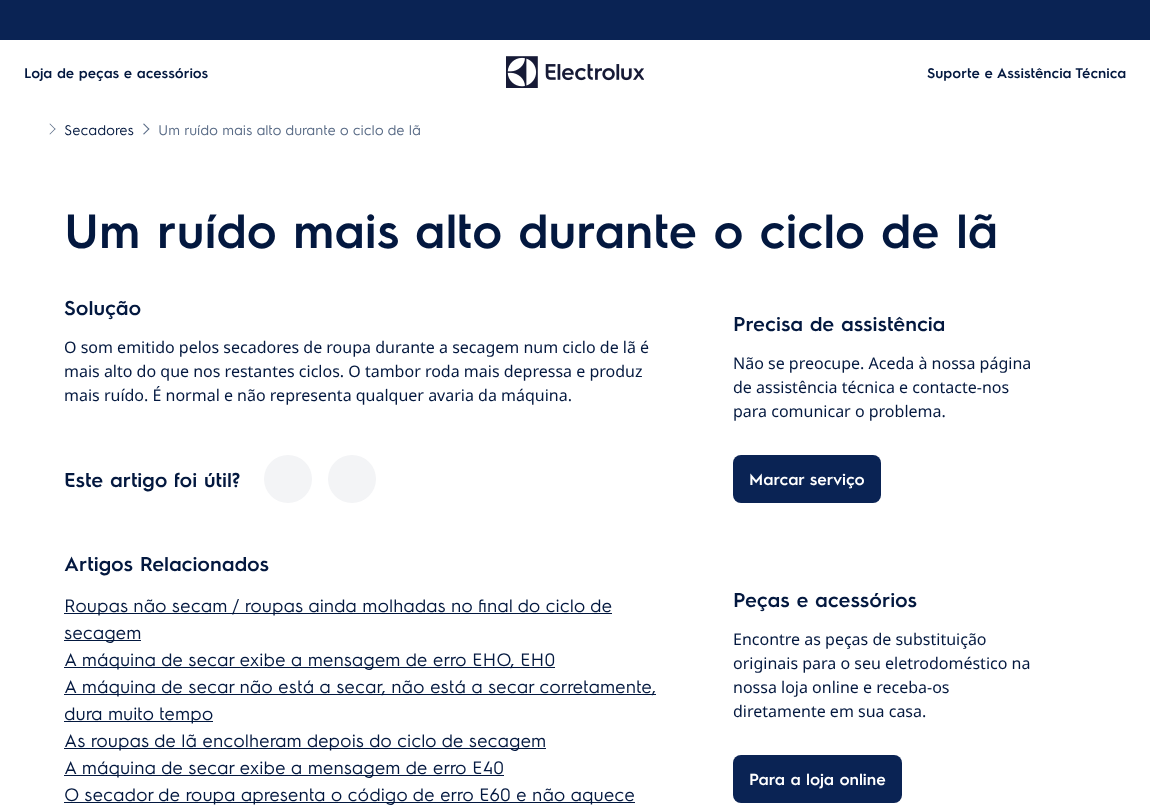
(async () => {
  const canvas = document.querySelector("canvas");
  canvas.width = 1150;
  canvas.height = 809;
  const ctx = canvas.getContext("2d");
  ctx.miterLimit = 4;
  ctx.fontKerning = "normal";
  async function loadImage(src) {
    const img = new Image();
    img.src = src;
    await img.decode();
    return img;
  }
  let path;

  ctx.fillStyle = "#ffffff";
  ctx.fillRect(0, 0, 1150, 809);
  ctx.fillStyle = "#0a2354";
  ctx.fillRect(0, 0, 1150, 40);
  ctx.drawImage(await loadImage("img/1.png"), 506, 56, 138, 32);
  ctx.fillStyle = "#596b86";
  path = new Path2D("M50 123.5L55.5 129L55 129.5L49.5 124Z");
  ctx.fill(path);
  path = new Path2D("M55 128.5L55.5 129L50 134.5L49.5 134Z");
  ctx.fill(path);
  path = new Path2D("M144 123.5L149.5 129L148.5 129.5L143 124Z");
  ctx.fill(path);
  path = new Path2D("M148.5 128.5L149.5 129L144 134.5L143 134Z");
  ctx.fill(path);
  ctx.fillStyle = "#f3f4f6";
  ctx.beginPath();
  ctx.arc(288, 479, 24, 0, Math.PI * 2);
  ctx.fill();
  ctx.beginPath();
  ctx.arc(352, 479, 24, 0, Math.PI * 2);
  ctx.fill();
  for (const [x, y, w, h, color] of [
    [64, 613, 548, 1, "#03183f"],
    [64, 640, 77, 1, "#03183f"],
    [64, 667, 491, 1, "#03183f"],
    [64, 694, 592, 1, "#03183f"],
    [64, 721, 149, 1, "#03183f"],
    [64, 748, 482, 1, "#03183f"],
    [64, 775, 440, 1, "#03183f"],
    [64, 802, 571, 1, "#03183f"],
  ]) {
    ctx.fillStyle = color;
    ctx.fillRect(x, y, w, h);
  }
  ctx.fillStyle = "#0a2354";
  ctx.beginPath();
  ctx.roundRect(733, 455, 148, 48, 8);
  ctx.fill();
  ctx.beginPath();
  ctx.roundRect(733, 755, 169, 48, 8);
  ctx.fill();
  ctx.font = "600 14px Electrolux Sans";
  ctx.fillStyle = "#03183f";
  ctx.fillText("Loja de peças e acessórios", 24, 78);
  ctx.fillText("Suporte e Assistência Técnica", 927, 78);
  ctx.font = "14px Electrolux Sans";
  ctx.fillText("Secadores", 64, 135);
  ctx.fillStyle = "#596b86";
  ctx.fillText("Um ruído mais alto durante o ciclo de lã", 158, 135);
  ctx.font = "600 48px Electrolux Sans";
  ctx.fillStyle = "#03183f";
  ctx.fillText("Um ruído mais alto durante o ciclo de lã", 64, 248);
  ctx.font = "600 20px Electrolux Sans";
  ctx.fillText("Solução", 64, 315);
  ctx.font = "16px Noto Sans";
  for (const [text, x, y] of [
    ["O som emitido pelos secadores de roupa durante a secagem num ciclo de lã é", 64, 353],
    ["mais alto do que nos restantes ciclos. O tambor roda mais depressa e produz", 64, 377],
    ["mais ruído. É normal e não representa qualquer avaria da máquina.", 64, 401],
  ]) {
    ctx.fillText(text, x, y);
  }
  ctx.font = "600 20px Electrolux Sans";
  ctx.fillText("Este artigo foi útil?", 64, 487);
  ctx.fillText("Artigos Relacionados", 64, 571);
  ctx.font = "18px Electrolux Sans";
  for (const [text, x, y] of [
    ["Roupas não secam / roupas ainda molhadas no final do ciclo de", 64, 612],
    ["secagem", 64, 639],
    ["A máquina de secar exibe a mensagem de erro EHO, EH0", 64, 666],
    ["A máquina de secar não está a secar, não está a secar corretamente,", 64, 693],
    ["dura muito tempo", 64, 720],
    ["As roupas de lã encolheram depois do ciclo de secagem", 64, 747],
    ["A máquina de secar exibe a mensagem de erro E40", 64, 774],
    ["O secador de roupa apresenta o código de erro E60 e não aquece", 64, 801],
  ]) {
    ctx.fillText(text, x, y);
  }
  ctx.font = "600 20px Electrolux Sans";
  ctx.fillText("Precisa de assistência", 733, 331);
  ctx.font = "16px Noto Sans";
  for (const [text, x, y] of [
    ["Não se preocupe. Aceda à nossa página", 733, 369],
    ["de assistência técnica e contacte-nos", 733, 393],
    ["para comunicar o problema.", 733, 417],
  ]) {
    ctx.fillText(text, x, y);
  }
  ctx.font = "600 16px Electrolux Sans";
  ctx.fillStyle = "#ffffff";
  ctx.fillText("Marcar serviço", 749, 485);
  ctx.font = "600 20px Electrolux Sans";
  ctx.fillStyle = "#03183f";
  ctx.fillText("Peças e acessórios", 733, 607);
  ctx.font = "16px Noto Sans";
  for (const [text, x, y] of [
    ["Encontre as peças de substituição", 733, 645],
    ["originais para o seu eletrodoméstico na", 733, 669],
    ["nossa loja online e receba-os", 733, 693],
    ["diretamente em sua casa.", 733, 717],
  ]) {
    ctx.fillText(text, x, y);
  }
  ctx.font = "600 16px Electrolux Sans";
  ctx.fillStyle = "#ffffff";
  ctx.fillText("Para a loja online", 749, 785);
})();
